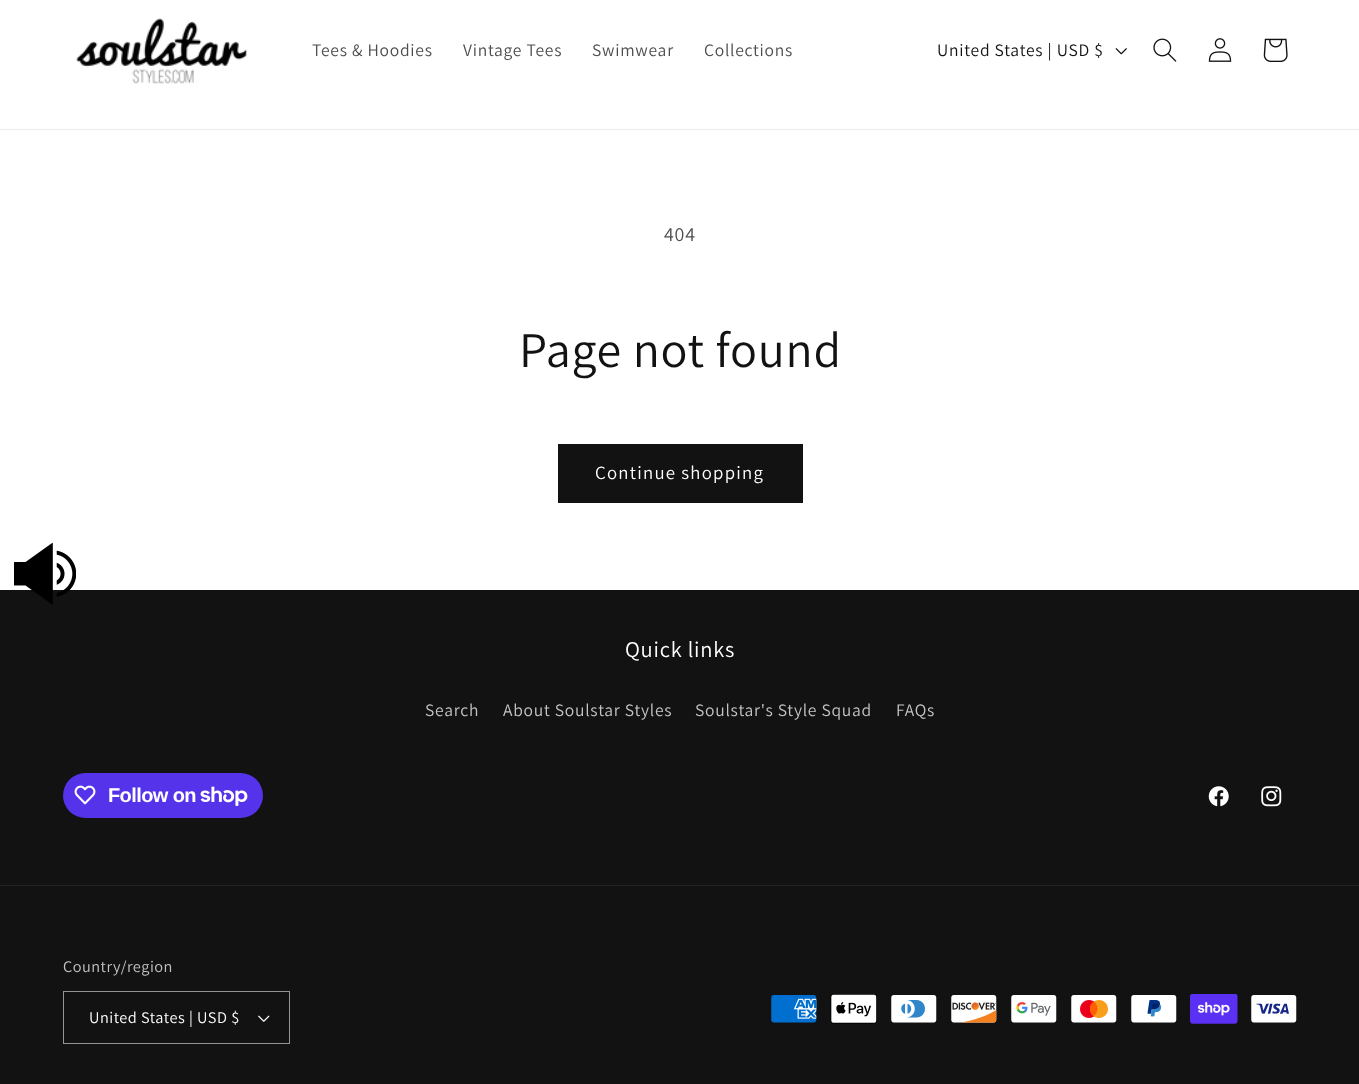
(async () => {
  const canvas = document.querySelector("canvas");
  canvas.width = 1359;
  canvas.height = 1084;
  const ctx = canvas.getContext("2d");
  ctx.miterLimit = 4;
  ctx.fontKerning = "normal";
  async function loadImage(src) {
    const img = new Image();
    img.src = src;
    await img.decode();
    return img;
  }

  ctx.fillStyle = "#ffffff";
  ctx.fillRect(0, 0, 1359, 1084);
  ctx.fillStyle = "#ececec";
  ctx.fillRect(0, 129, 1359, 1);
  ctx.drawImage(await loadImage("img/1.png"), 76, 18, 172, 66);
  ctx.drawImage(await loadImage("img/2.png"), 1115, 48, 12, 7);
  ctx.drawImage(await loadImage("img/3.png"), 1153, 38, 24, 24);
  ctx.drawImage(await loadImage("img/4.png"), 1208, 38, 24, 24);
  ctx.drawImage(await loadImage("img/5.png"), 1263, 38, 25, 24);
  ctx.fillStyle = "#121212";
  ctx.fillRect(558, 444, 245, 59);
  ctx.fillRect(0, 590, 1359, 494);
  ctx.drawImage(await loadImage("img/6.png"), 14, 543, 62, 62);
  ctx.fillStyle = "#5433eb";
  ctx.beginPath();
  ctx.roundRect(63, 773, 200, 45, 22.5);
  ctx.fill();
  ctx.drawImage(await loadImage("img/7.png"), 74, 785, 22, 20);
  ctx.drawImage(await loadImage("img/8.png"), 200, 786, 48, 20);
  ctx.drawImage(await loadImage("img/9.png"), 1208, 786, 21, 21);
  ctx.drawImage(await loadImage("img/10.png"), 1261, 786, 21, 21);
  ctx.fillStyle = "#252525";
  ctx.fillRect(0, 885, 1359, 1);
  ctx.drawImage(await loadImage("img/11.png"), 258, 1015, 12, 7);
  ctx.strokeStyle = "#949494";
  ctx.strokeRect(63.5, 991.5, 226, 52);
  ctx.drawImage(await loadImage("img/12.png"), 771, 995, 46, 28);
  ctx.drawImage(await loadImage("img/13.png"), 830, 994, 47, 30);
  ctx.drawImage(await loadImage("img/14.png"), 891, 995, 46, 28);
  ctx.drawImage(await loadImage("img/15.png"), 951, 995, 46, 28);
  ctx.drawImage(await loadImage("img/16.png"), 1011, 995, 46, 28);
  ctx.drawImage(await loadImage("img/17.png"), 1071, 995, 46, 28);
  ctx.drawImage(await loadImage("img/18.png"), 1131, 995, 46, 28);
  ctx.drawImage(await loadImage("img/19.png"), 1190, 994, 48, 30);
  ctx.drawImage(await loadImage("img/20.png"), 1251, 995, 46, 28);
  ctx.letterSpacing = "0.75px";
  ctx.font = "17.5px Assistant";
  ctx.fillStyle = "#4d4d4d";
  for (const [text, x, y] of [
    ["Tees & Hoodies", 312, 56],
    ["Vintage Tees", 463, 56],
    ["Swimwear", 592, 56],
    ["Collections", 704, 56],
  ]) {
    ctx.fillText(text, x, y);
  }
  ctx.fillStyle = "#121212";
  ctx.fillText("United States | USD $", 937, 56);
  ctx.font = "20px Assistant";
  ctx.fillStyle = "#4d4d4d";
  ctx.fillText("404", 664, 241);
  ctx.font = "50px Assistant";
  ctx.fillStyle = "#121212";
  ctx.fillText("Page not found", 519, 367);
  ctx.letterSpacing = "1.25px";
  ctx.font = "18.75px Assistant";
  ctx.fillStyle = "#ffffff";
  ctx.fillText("Continue shopping", 595, 479);
  ctx.letterSpacing = "0.75px";
  ctx.font = "22.5px Assistant";
  ctx.fillText("Quick links", 625, 657);
  ctx.font = "17.5px Assistant";
  ctx.fillStyle = "#c4c4c4";
  for (const [text, x, y] of [
    ["Search", 425, 716],
    ["About Soulstar Styles", 503, 716],
    ["Soulstar's Style Squad", 695, 716],
    ["FAQs", 896, 716],
  ]) {
    ctx.fillText(text, x, y);
  }
  ctx.letterSpacing = "-0.6px";
  ctx.font = "bold 20px Liberation Sans";
  ctx.fillStyle = "#ffffff";
  ctx.fillText("Follow on", 108, 802);
  ctx.letterSpacing = "0.5px";
  ctx.font = "16.25px Assistant";
  ctx.fillStyle = "#c4c4c4";
  ctx.fillText("Country/region", 63, 972);
  ctx.fillStyle = "#ffffff";
  ctx.fillText("United States | USD $", 89, 1023);
})();
